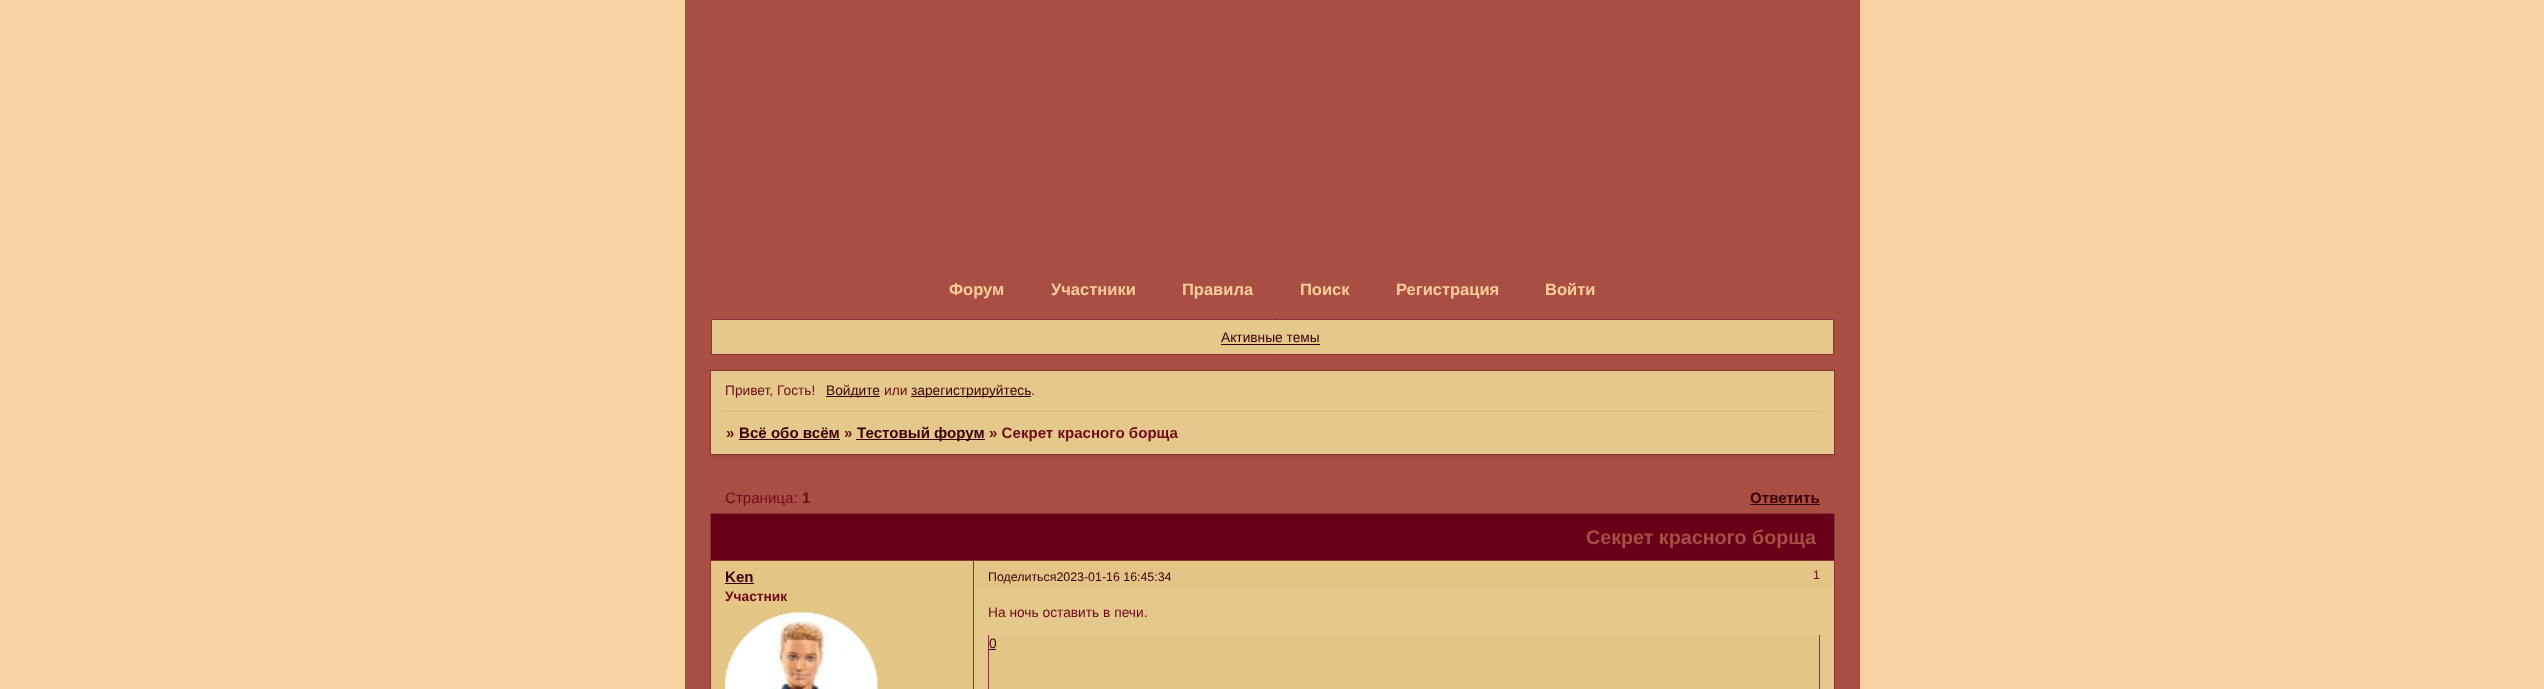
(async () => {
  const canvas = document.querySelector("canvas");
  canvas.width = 2544;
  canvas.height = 689;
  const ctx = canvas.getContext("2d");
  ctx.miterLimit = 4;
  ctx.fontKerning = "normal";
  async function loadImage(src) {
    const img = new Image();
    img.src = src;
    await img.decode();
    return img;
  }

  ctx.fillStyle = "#f7d1a0";
  ctx.fillRect(0, 0, 2544, 689);
  ctx.fillStyle = "#a84e43";
  ctx.fillRect(685, 0, 1175, 689);
  ctx.fillStyle = "#e5c88b";
  ctx.beginPath();
  ctx.rect(711.5, 319.5, 1122, 35);
  ctx.fill();
  ctx.strokeStyle = "#8b3337";
  ctx.stroke();
  for (const [x, y, w, h, color] of [
    [1221, 344, 99, 1, "#3c0007"],
    [711, 371, 1123, 83, "#e5c88b"],
    [710, 370, 1125, 1, "#8b3337"],
    [1834, 370, 1, 85, "#8b3337"],
    [710, 370, 1, 41, "#8b3337"],
    [826, 396, 54, 1, "#3c0007"],
    [911, 396, 120, 1, "#3c0007"],
    [724, 409, 1097, 1, "#f2d494"],
    [724, 410, 1097, 1, "#d9be84"],
    [710, 455, 1125, 3, "#9e4a3f"],
    [710, 454, 1125, 1, "#8b3337"],
    [710, 409, 1, 46, "#8b3337"],
    [739, 439, 101, 1, "#3c0007"],
    [856, 439, 129, 1, "#3c0007"],
    [1750, 504, 70, 1, "#3c0007"],
    [711, 514, 1123, 46, "#680017"],
    [710, 513, 1125, 1, "#8b3337"],
    [1834, 513, 1, 47, "#8b3337"],
    [710, 513, 1, 47, "#8b3337"],
    [711, 589, 262, 100, "#e3c586"],
    [711, 561, 1123, 28, "#e3c586"],
    [725, 583, 29, 1, "#3c0007"],
  ]) {
    ctx.fillStyle = color;
    ctx.fillRect(x, y, w, h);
  }
  ctx.drawImage(await loadImage("img/1.png"), 725, 612, 153, 77);
  for (const [x, y, w, h, color] of [
    [974, 589, 860, 100, "#e5c88b"],
    [989, 635, 830, 54, "#e3c586"],
    [1819, 635, 1, 54, "#8b3337"],
    [988, 635, 1, 54, "#8b3337"],
    [989, 649, 7, 1, "#3c0007"],
    [710, 560, 1125, 1, "#8b3337"],
    [1834, 560, 1, 129, "#8b3337"],
    [710, 560, 1, 129, "#8b3337"],
    [973, 561, 1, 128, "#8b3337"],
  ]) {
    ctx.fillStyle = color;
    ctx.fillRect(x, y, w, h);
  }
  ctx.font = "bold 16.5px Liberation Sans";
  ctx.fillStyle = "#ffcd9a";
  for (const [text, x, y] of [
    ["Форум", 949, 295],
    ["Участники", 1051, 295],
    ["Правила", 1182, 295],
    ["Поиск", 1300, 295],
    ["Регистрация", 1396, 295],
    ["Войти", 1545, 295],
  ]) {
    ctx.fillText(text, x, y);
  }
  ctx.font = "13.75px Liberation Sans";
  ctx.fillStyle = "#3c0007";
  ctx.fillText("Активные темы", 1221, 342);
  ctx.fillStyle = "#700b1c";
  ctx.fillText("Привет, Гость!", 725, 395);
  ctx.fillStyle = "#3c0007";
  ctx.fillText("Войдите", 826, 395);
  ctx.fillStyle = "#700b1c";
  ctx.fillText("или", 884, 395);
  ctx.fillStyle = "#3c0007";
  ctx.fillText("зарегистрируйтесь", 911, 395);
  ctx.fillStyle = "#700b1c";
  ctx.fillText(".", 1031, 395);
  ctx.font = "bold 15.1px Liberation Sans";
  ctx.fillText("»", 726, 438);
  ctx.fillStyle = "#3c0007";
  ctx.fillText("Всё обо всём", 739, 438);
  ctx.fillStyle = "#700b1c";
  ctx.fillText("»", 844, 438);
  ctx.fillStyle = "#3c0007";
  ctx.fillText("Тестовый форум", 857, 438);
  ctx.fillStyle = "#700b1c";
  ctx.fillText("» Секрет красного борща", 989, 438);
  ctx.font = "15.1px Liberation Sans";
  ctx.fillText("Страница:", 725, 503);
  ctx.font = "bold 15.1px Liberation Sans";
  ctx.fillText("1", 802, 503);
  ctx.fillStyle = "#3c0007";
  ctx.fillText("Ответить", 1750, 503);
  ctx.font = "bold 19.7px Liberation Sans";
  ctx.fillStyle = "#a84e43";
  ctx.fillText("Секрет красного борща", 1586, 544);
  ctx.font = "bold 15.1px Liberation Sans";
  ctx.fillStyle = "#3c0007";
  ctx.fillText("Ken", 725, 582);
  ctx.font = "bold 13.75px Liberation Sans";
  ctx.fillStyle = "#700b1c";
  ctx.fillText("Участник", 725, 601);
  ctx.font = "13.75px Liberation Sans";
  ctx.fillText("На ночь оставить в печи.", 988, 617);
  ctx.fillStyle = "#3c0007";
  ctx.fillText("0", 989, 648);
  ctx.font = "12.4px Liberation Sans";
  ctx.fillText("Поделиться2023-01-16 16:45:34", 988, 581);
  ctx.fillStyle = "#700b1c";
  ctx.fillText("1", 1813, 579);
})();
